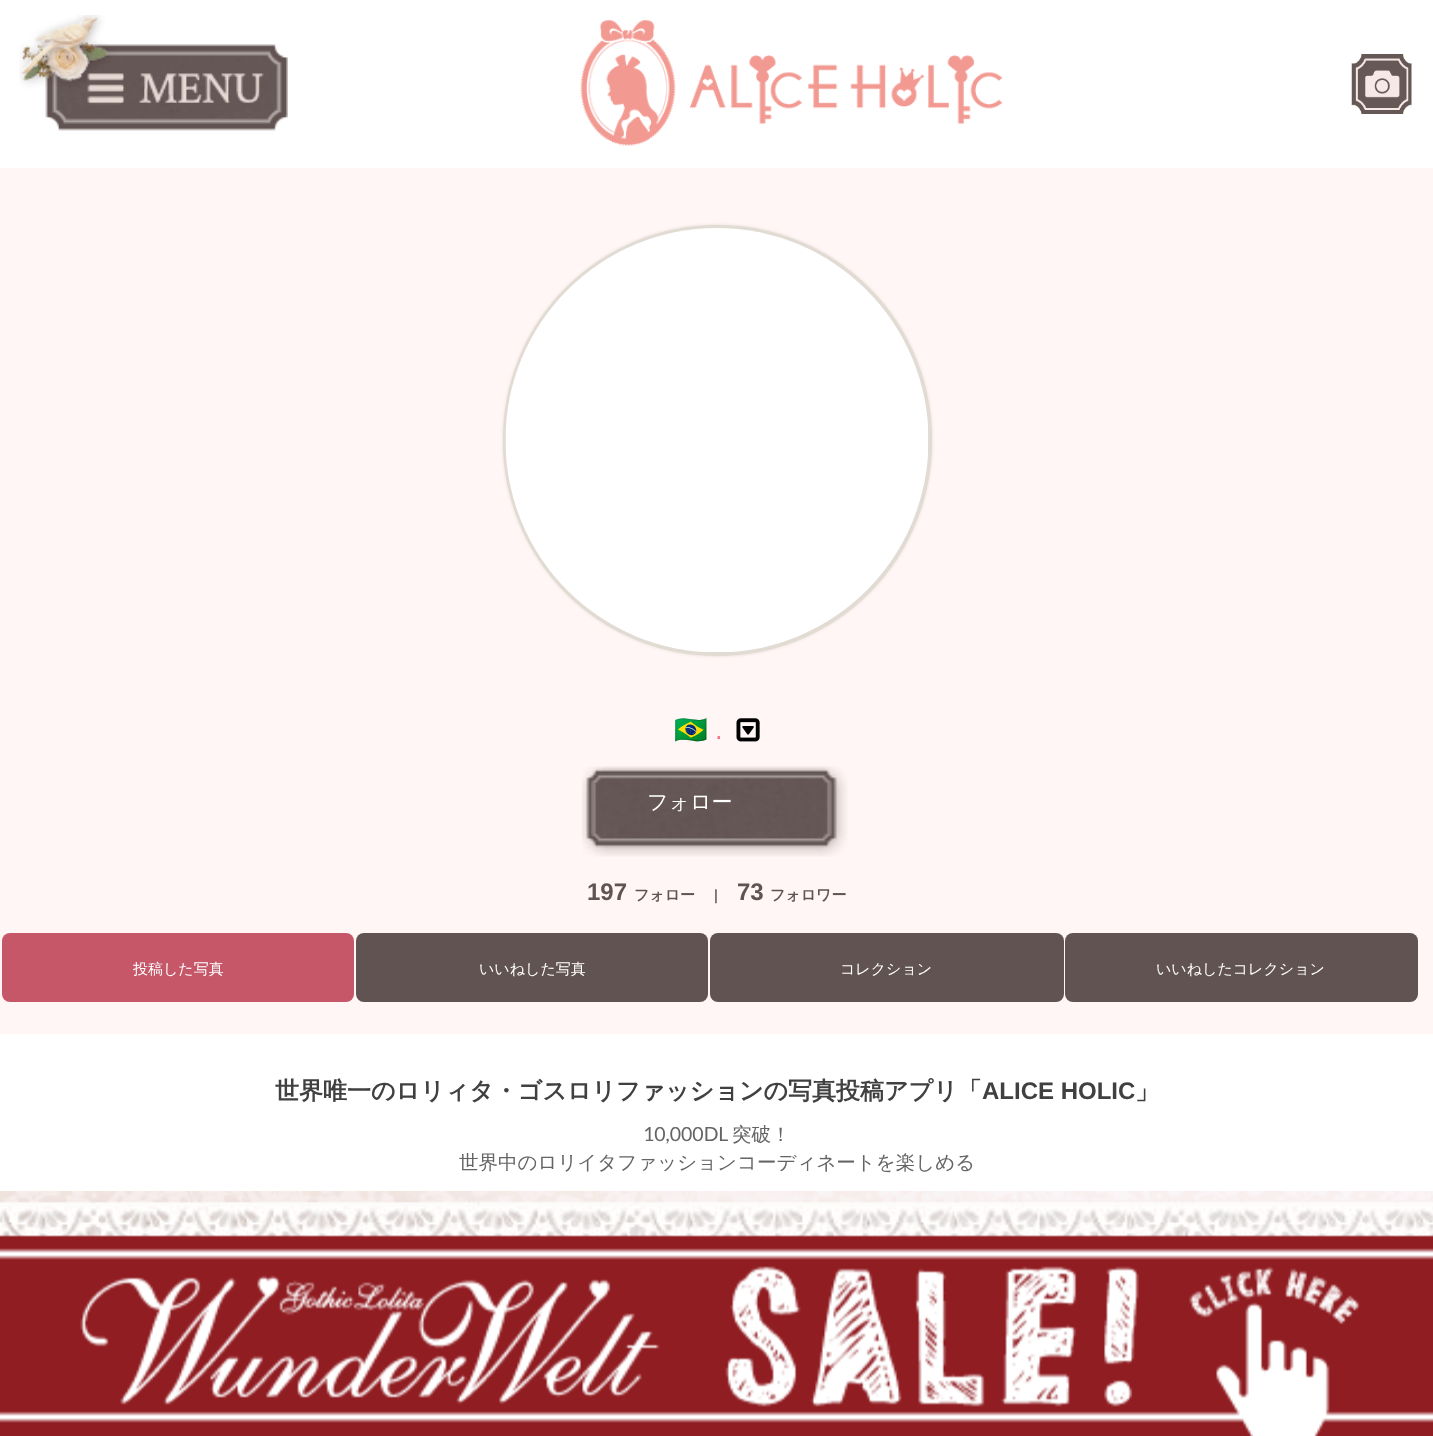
(async () => {
  const canvas = document.querySelector("canvas");
  canvas.width = 1433;
  canvas.height = 1436;
  const ctx = canvas.getContext("2d");
  ctx.miterLimit = 4;
  ctx.fontKerning = "normal";
  async function loadImage(src) {
    const img = new Image();
    img.src = src;
    await img.decode();
    return img;
  }

  ctx.fillStyle = "#ffffff";
  ctx.fillRect(0, 0, 1433, 1436);
  ctx.drawImage(await loadImage("img/1.png"), 19, 15, 269, 116);
  ctx.drawImage(await loadImage("img/2.png"), 580, 20, 422, 126);
  ctx.drawImage(await loadImage("img/3.png"), 1351, 54, 61, 60);
  ctx.fillStyle = "#fff6f5";
  ctx.fillRect(0, 168, 1433, 866);
  ctx.fillStyle = "#e1dbd4";
  ctx.filter = "blur(1.5px)";
  ctx.beginPath();
  ctx.roundRect(503, 225, 429, 431, 214.5);
  ctx.fill();
  ctx.filter = "none";
  ctx.beginPath();
  ctx.roundRect(504.5, 226.5, 426, 428, 213);
  ctx.strokeStyle = "#e1dbd4";
  ctx.lineWidth = 3;
  ctx.stroke();
  ctx.drawImage(await loadImage("img/4.png"), 505, 228, 423, 424);
  ctx.drawImage(await loadImage("img/5.png"), 736, 718, 24, 24);
  ctx.drawImage(await loadImage("img/6.png"), 582, 766, 266, 91);
  ctx.fillStyle = "#c55769";
  ctx.beginPath();
  ctx.roundRect(2, 933, 352, 69, 8);
  ctx.fill();
  ctx.fillStyle = "#615351";
  ctx.beginPath();
  ctx.roundRect(356, 933, 352, 69, 8);
  ctx.fill();
  ctx.beginPath();
  ctx.roundRect(710, 933, 354, 69, 8);
  ctx.fill();
  ctx.beginPath();
  ctx.roundRect(1065, 933, 353, 69, 8);
  ctx.fill();
  ctx.drawImage(await loadImage("img/7.png"), 0, 1191, 1433, 46);
  ctx.drawImage(await loadImage("img/8.png"), 0, 1235, 1433, 201);
  ctx.font = "27px Noto Color Emoji";
  ctx.fillStyle = "#f37388";
  ctx.fillText("🇧🇷", 674, 739);
  ctx.font = "27px Liberation Sans";
  ctx.fillText(".", 715, 739);
  ctx.font = "500 21px WenQuanYi Zen Hei";
  ctx.fillStyle = "#ffffff";
  ctx.fillText("フォロー", 647, 809);
  ctx.font = "bold 24px Liberation Sans";
  ctx.fillStyle = "#615351";
  ctx.fillText("197", 587, 900);
  ctx.font = "bold 15px WenQuanYi Zen Hei";
  ctx.fillText("フォロー", 634, 900);
  ctx.font = "15px Liberation Sans";
  ctx.fillStyle = "#3e2f2e";
  ctx.fillText("|", 714, 900);
  ctx.font = "bold 24px Liberation Sans";
  ctx.fillStyle = "#615351";
  ctx.fillText("73", 737, 900);
  ctx.font = "bold 15px WenQuanYi Zen Hei";
  ctx.fillText("フォロワー", 770, 900);
  ctx.font = "500 15px WenQuanYi Zen Hei";
  ctx.fillStyle = "#ffffff";
  for (const [text, x, y] of [
    ["投稿した写真", 133, 974],
    ["いいねした写真", 479, 974],
    ["コレクション", 840, 974],
    ["いいねしたコレクション", 1156, 974],
  ]) {
    ctx.fillText(text, x, y);
  }
  ctx.font = "bold 24px WenQuanYi Zen Hei";
  ctx.fillStyle = "#404040";
  ctx.fillText("世界唯一のロリィタ・ゴスロリファッションの写真投稿アプリ「", 275, 1099);
  ctx.font = "bold 24px Liberation Sans";
  ctx.fillText("ALICE HOLIC", 982, 1099);
  ctx.font = "bold 24px WenQuanYi Zen Hei";
  ctx.fillText("」", 1135, 1099);
  ctx.font = "19.5px Lato";
  ctx.fillStyle = "#656464";
  ctx.fillText("10,000DL", 643, 1141);
  ctx.font = "500 19.5px WenQuanYi Zen Hei";
  ctx.fillText("突破！", 732, 1141);
  ctx.fillText("世界中のロリイタファッションコーディネートを楽しめる", 459, 1169);
})();
